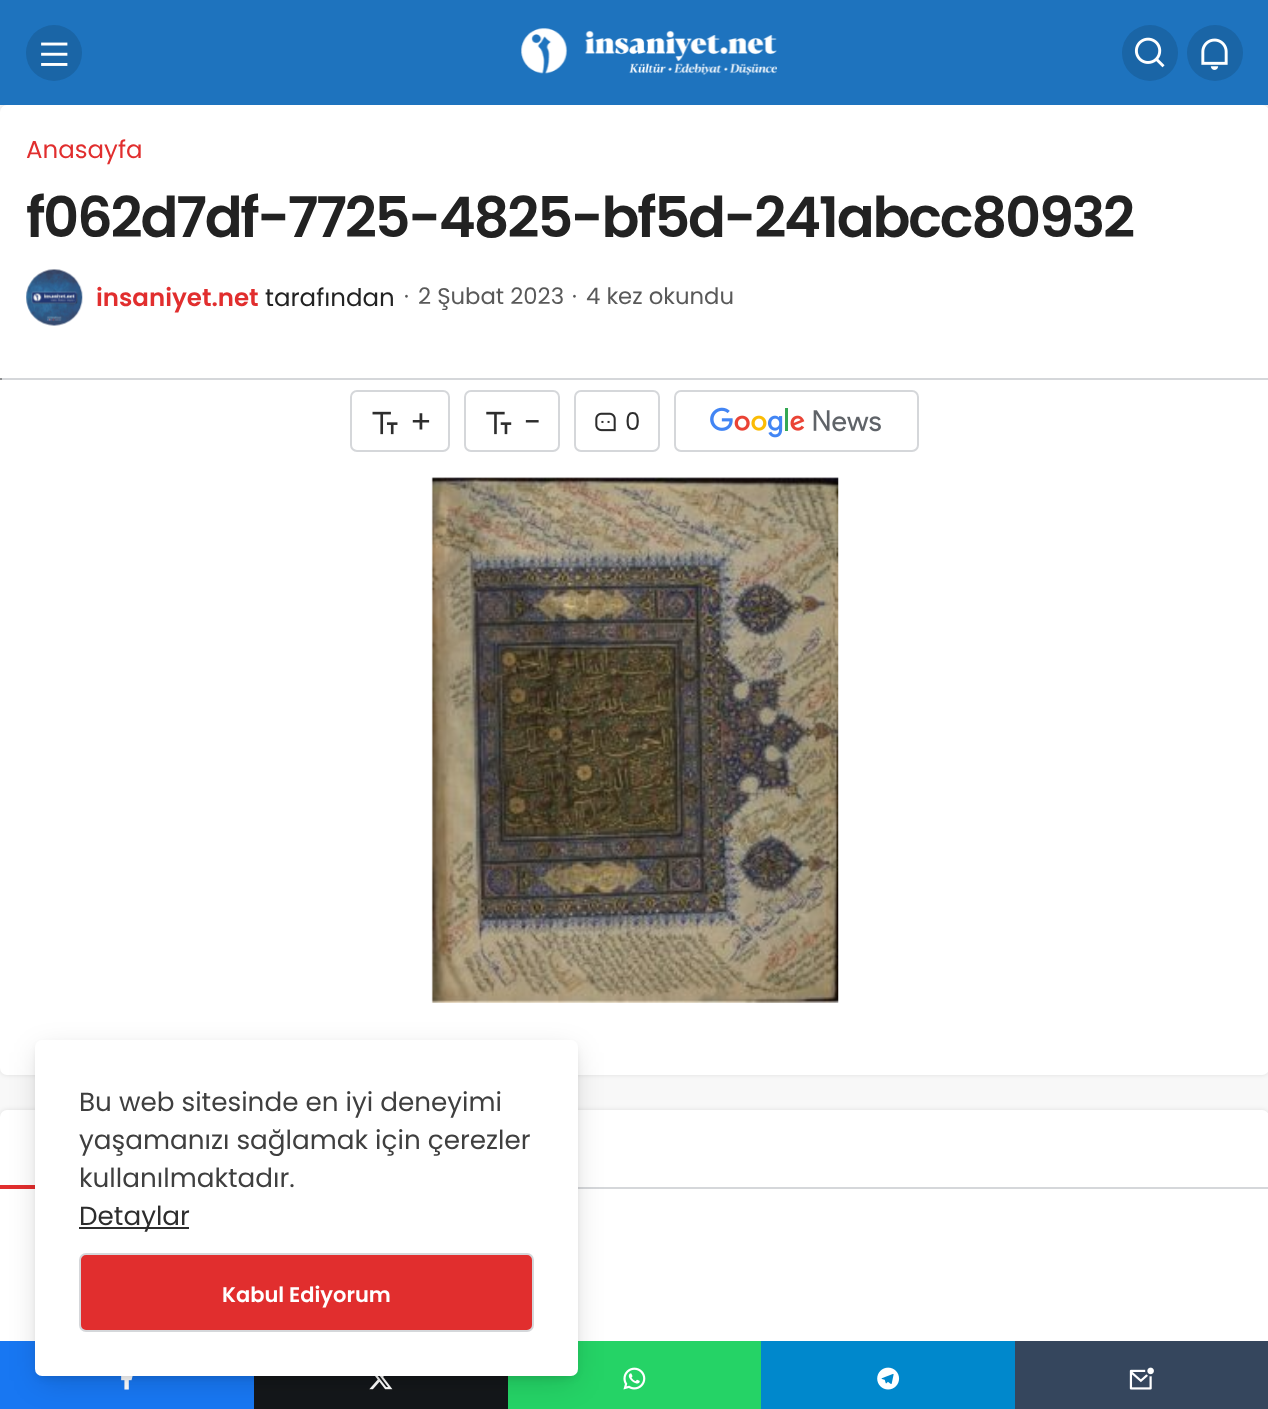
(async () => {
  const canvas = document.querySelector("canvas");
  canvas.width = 1268;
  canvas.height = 1409;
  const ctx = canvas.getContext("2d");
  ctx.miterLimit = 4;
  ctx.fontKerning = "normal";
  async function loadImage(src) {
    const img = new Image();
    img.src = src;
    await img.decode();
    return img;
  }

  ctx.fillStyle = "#f8f8f8";
  ctx.fillRect(0, 0, 1268, 1409);
  ctx.fillStyle = "rgba(0, 0, 0, 0.1)";
  ctx.filter = "blur(2.5px)";
  ctx.beginPath();
  ctx.roundRect(0, 105, 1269, 970, 7);
  ctx.fill();
  ctx.filter = "none";
  ctx.fillStyle = "#1e73be";
  ctx.fillRect(0, 0, 1268, 105);
  ctx.fillStyle = "#1a65a6";
  ctx.beginPath();
  ctx.arc(54, 53, 28, 0, Math.PI * 2);
  ctx.fill();
  ctx.drawImage(await loadImage("img/1.png"), 41, 42, 27, 24);
  ctx.drawImage(await loadImage("img/2.png"), 521, 28, 256, 47);
  ctx.beginPath();
  ctx.arc(1150, 53, 28, 0, Math.PI * 2);
  ctx.fill();
  ctx.drawImage(await loadImage("img/3.png"), 1134, 37, 31, 31);
  ctx.beginPath();
  ctx.arc(1215, 53, 28, 0, Math.PI * 2);
  ctx.fill();
  ctx.drawImage(await loadImage("img/4.png"), 1201, 38, 27, 32);
  ctx.fillStyle = "#ffffff";
  ctx.beginPath();
  ctx.roundRect(0, 105, 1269, 970, 7);
  ctx.fill();
  ctx.drawImage(await loadImage("img/5.png"), 26, 269, 57, 57);
  ctx.fillStyle = "#d5d7da";
  ctx.fillRect(0, 378, 1268, 2);
  ctx.fillStyle = "#8e8f91";
  ctx.fillRect(0, 378, 2, 2);
  ctx.beginPath();
  ctx.roundRect(351, 391, 98, 60, 6);
  ctx.strokeStyle = "#d5d7da";
  ctx.lineWidth = 2;
  ctx.stroke();
  ctx.drawImage(await loadImage("img/6.png"), 372, 411, 26, 24);
  ctx.beginPath();
  ctx.roundRect(465, 391, 94, 60, 6);
  ctx.stroke();
  ctx.drawImage(await loadImage("img/7.png"), 486, 411, 26, 24);
  ctx.beginPath();
  ctx.roundRect(575, 391, 84, 60, 6);
  ctx.stroke();
  ctx.drawImage(await loadImage("img/8.png"), 595, 412, 21, 20);
  ctx.drawImage(await loadImage("img/9.png"), 710, 407, 171, 31);
  ctx.beginPath();
  ctx.roundRect(675, 391, 243, 60, 6);
  ctx.stroke();
  ctx.drawImage(await loadImage("img/10.png"), 431, 477, 408, 526);
  ctx.fillStyle = "rgba(0, 0, 0, 0.1)";
  ctx.filter = "blur(2.5px)";
  ctx.beginPath();
  ctx.roundRect(0, 1110, 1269, 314, 7);
  ctx.fill();
  ctx.filter = "none";
  ctx.fillStyle = "#ffffff";
  ctx.beginPath();
  ctx.roundRect(0, 1110, 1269, 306, 7);
  ctx.fill();
  for (const [x, y, w, h, color] of [
    [578, 1187, 690, 2, "#d5d7da"],
    [0, 1185, 35, 4, "#e12e2e"],
    [0, 1341, 254, 68, "#1877f2"],
  ]) {
    ctx.fillStyle = color;
    ctx.fillRect(x, y, w, h);
  }
  ctx.drawImage(await loadImage("img/11.png"), 121, 1376, 12, 14);
  ctx.fillStyle = "#14171a";
  ctx.fillRect(254, 1376, 254, 33);
  ctx.drawImage(await loadImage("img/12.png"), 369, 1376, 24, 14);
  ctx.fillStyle = "#25d366";
  ctx.fillRect(508, 1341, 253, 68);
  ctx.drawImage(await loadImage("img/13.png"), 623, 1367, 23, 23);
  ctx.fillStyle = "#0088cc";
  ctx.fillRect(761, 1341, 254, 68);
  ctx.drawImage(await loadImage("img/14.png"), 877, 1367, 23, 23);
  ctx.fillStyle = "#35465d";
  ctx.fillRect(1015, 1341, 253, 68);
  ctx.drawImage(await loadImage("img/15.png"), 1129, 1367, 25, 23);
  ctx.fillStyle = "rgba(0, 0, 0, 0.15)";
  ctx.filter = "blur(15px)";
  ctx.beginPath();
  ctx.roundRect(39, 1052, 535, 329, 4);
  ctx.fill();
  ctx.filter = "none";
  ctx.filter = "blur(4.5px)";
  ctx.beginPath();
  ctx.roundRect(39, 1047, 535, 329, 4);
  ctx.fill();
  ctx.filter = "none";
  ctx.fillStyle = "#ffffff";
  ctx.beginPath();
  ctx.roundRect(35, 1040, 543, 336, 7);
  ctx.fill();
  ctx.fillStyle = "#2d2d2d";
  ctx.fillRect(79, 1227, 110, 2);
  ctx.fillStyle = "#e12e2e";
  ctx.beginPath();
  ctx.roundRect(80, 1254, 453, 77, 6);
  ctx.fill();
  ctx.stroke();
  ctx.font = "24.5px Poppins";
  ctx.fillText("Anasayfa", 26, 158);
  ctx.letterSpacing = "-2.25px";
  ctx.font = "600 56px Poppins";
  ctx.fillStyle = "#222222";
  ctx.fillText("f062d7df-7725-4825-bf5d-241abcc80932", 26, 237);
  ctx.letterSpacing = "0px";
  ctx.font = "600 24.5px Poppins";
  ctx.fillStyle = "#e12e2e";
  ctx.fillText("insaniyet.net", 96, 306);
  ctx.font = "24.5px Poppins";
  ctx.fillStyle = "#222222";
  ctx.fillText("tarafından", 265, 306);
  ctx.font = "22.75px Poppins";
  ctx.fillStyle = "#595959";
  for (const [text, x, y] of [
    ["·", 404, 304],
    ["2 Şubat 2023", 418, 304],
    ["·", 572, 304],
    ["4 kez okundu", 586, 304],
  ]) {
    ctx.fillText(text, x, y);
  }
  ctx.font = "32px Poppins";
  ctx.fillStyle = "#2d2d2d";
  ctx.fillText("+", 410, 433);
  ctx.fillText("-", 524, 433);
  ctx.font = "24.5px Poppins";
  ctx.fillText("0", 625, 430);
  ctx.font = "26.25px Poppins";
  ctx.fillStyle = "#3f3f3f";
  for (const [text, x, y] of [
    ["Bu web sitesinde en iyi deneyimi", 79, 1111],
    ["yaşamanızı sağlamak için çerezler", 79, 1149],
    ["kullanılmaktadır.", 79, 1187],
  ]) {
    ctx.fillText(text, x, y);
  }
  ctx.fillStyle = "#2d2d2d";
  ctx.fillText("Detaylar", 79, 1225);
  ctx.font = "600 21px Poppins";
  ctx.fillStyle = "#ffffff";
  ctx.fillText("Kabul Ediyorum", 222, 1302);
})();
